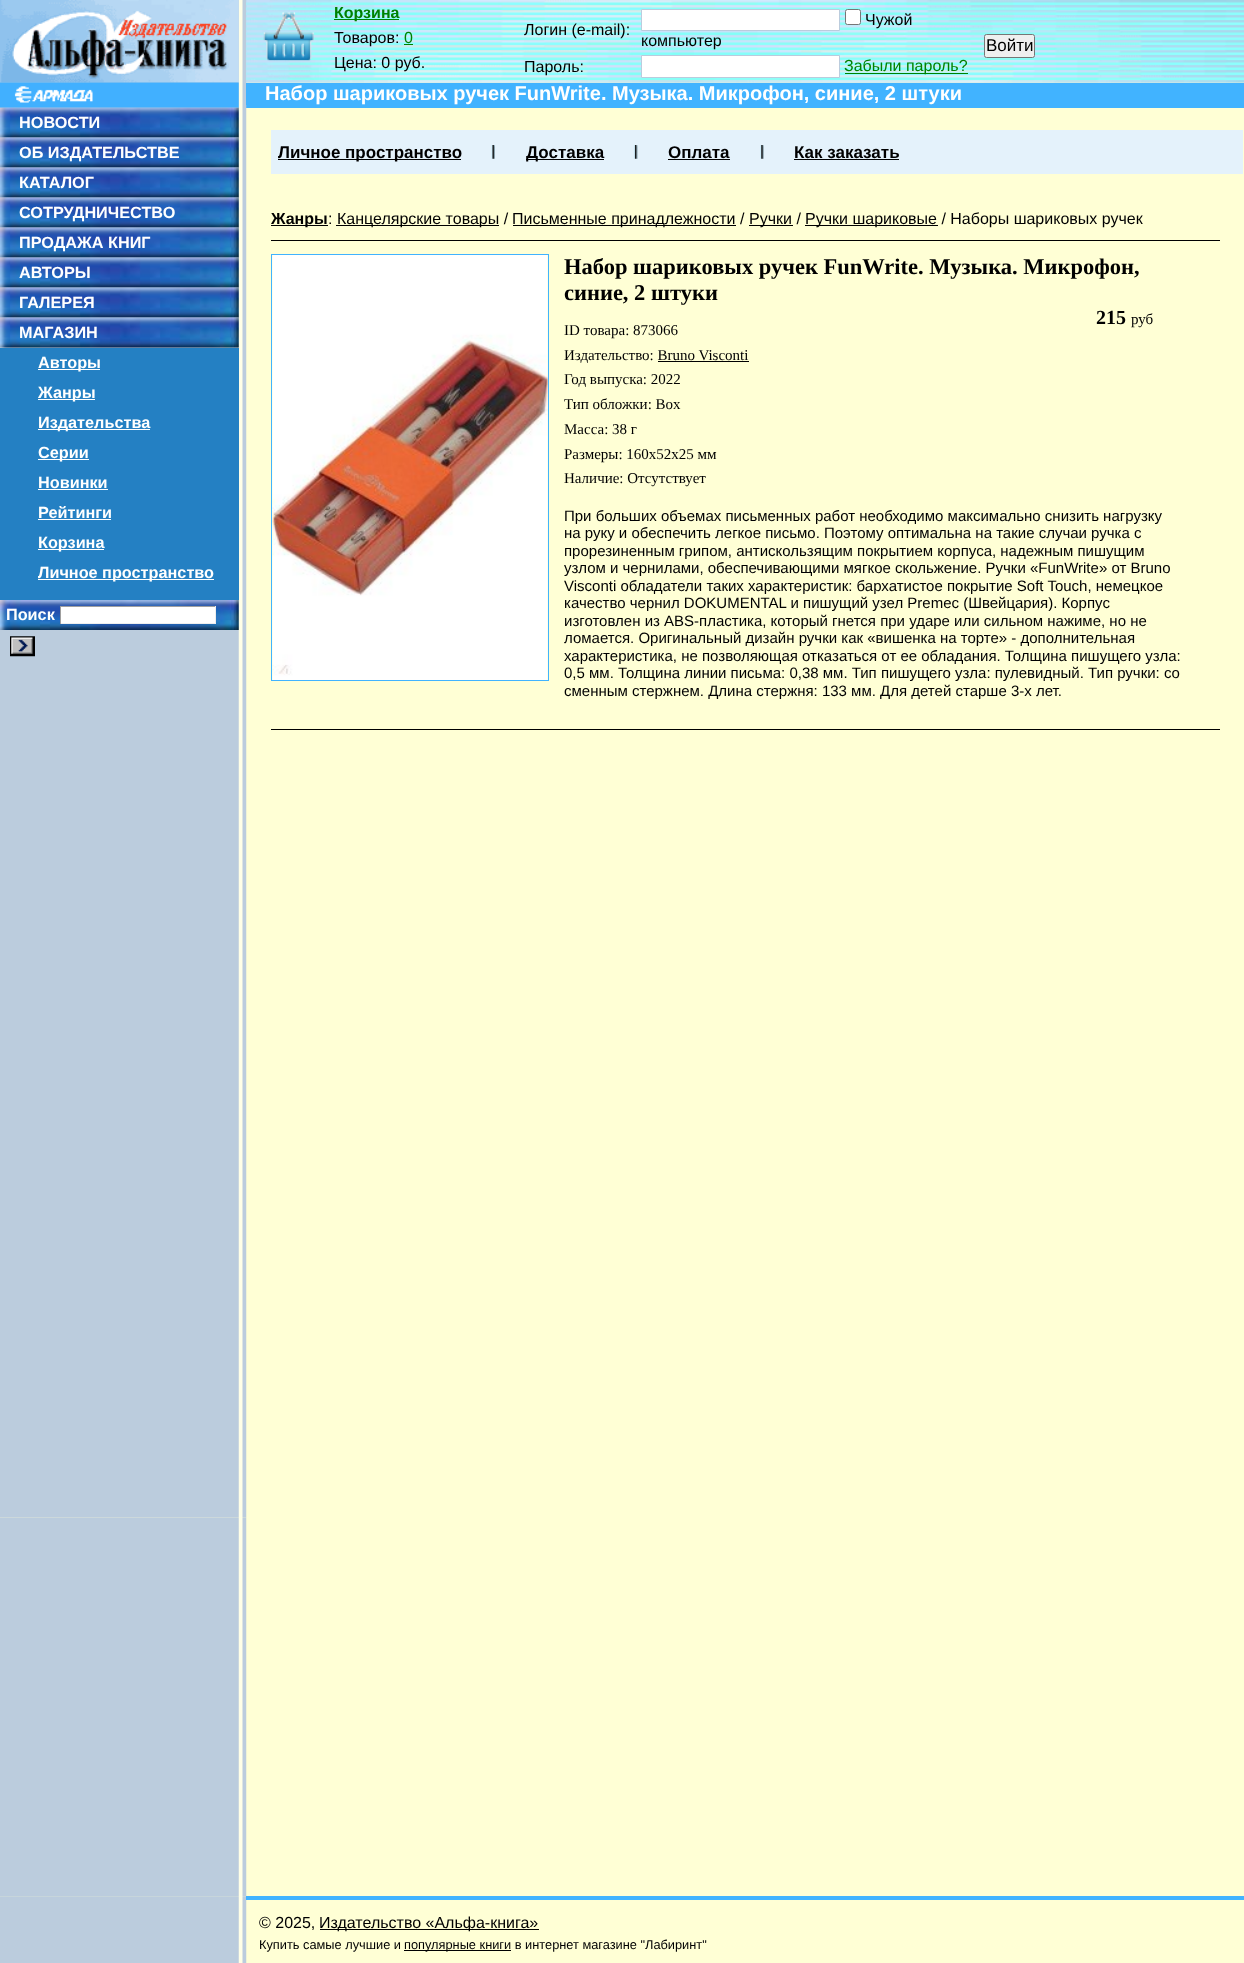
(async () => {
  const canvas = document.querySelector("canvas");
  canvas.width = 1244;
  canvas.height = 1963;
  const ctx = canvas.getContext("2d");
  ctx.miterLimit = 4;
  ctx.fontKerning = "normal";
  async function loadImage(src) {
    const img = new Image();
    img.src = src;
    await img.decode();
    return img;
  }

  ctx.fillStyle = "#ffffd5";
  ctx.fillRect(0, 0, 1244, 1963);
  ctx.drawImage(await loadImage("img/1.png"), 246, 0, 998, 83);
  ctx.fillStyle = "#41b3ff";
  ctx.fillRect(246, 105, 998, 3);
  ctx.drawImage(await loadImage("img/2.png"), 0, 0, 247, 1518);
  ctx.drawImage(await loadImage("img/3.png"), 0, 0, 239, 83);
  ctx.drawImage(await loadImage("img/5.png"), 0, 107, 239, 31);
  ctx.drawImage(await loadImage("img/4.png"), 0, 82, 239, 26);
  ctx.drawImage(await loadImage("img/6.png"), 0, 137, 239, 31);
  ctx.drawImage(await loadImage("img/6.png"), 0, 167, 239, 31);
  ctx.drawImage(await loadImage("img/6.png"), 0, 197, 239, 31);
  ctx.drawImage(await loadImage("img/6.png"), 0, 227, 239, 31);
  ctx.drawImage(await loadImage("img/6.png"), 0, 257, 239, 31);
  ctx.drawImage(await loadImage("img/7.png"), 0, 287, 239, 31);
  ctx.drawImage(await loadImage("img/6.png"), 0, 317, 239, 31);
  for (const [x, y, w, h, color] of [
    [0, 348, 239, 252, "#2480c3"],
    [38, 369, 62, 1, "#ffffff"],
    [38, 399, 57, 1, "#ffffff"],
    [38, 429, 112, 1, "#ffffff"],
    [38, 459, 51, 1, "#ffffff"],
    [38, 489, 70, 1, "#ffffff"],
    [38, 519, 73, 1, "#ffffff"],
    [38, 549, 66, 1, "#ffffff"],
    [38, 579, 176, 1, "#ffffff"],
  ]) {
    ctx.fillStyle = color;
    ctx.fillRect(x, y, w, h);
  }
  ctx.drawImage(await loadImage("img/8.png"), 0, 600, 239, 30);
  for (const [x, y, w, h, color] of [
    [61, 607, 154, 16, "#ffffff"],
    [60, 606, 156, 1, "#9f9f9f"],
    [215, 606, 1, 18, "#eeeeee"],
    [60, 623, 156, 1, "#eeeeee"],
    [60, 606, 1, 18, "#9f9f9f"],
  ]) {
    ctx.fillStyle = color;
    ctx.fillRect(x, y, w, h);
  }
  ctx.drawImage(await loadImage("img/9.png"), 10, 636, 25, 21);
  ctx.drawImage(await loadImage("img/10.png"), 0, 1517, 247, 380);
  ctx.drawImage(await loadImage("img/11.png"), 246, 0, 998, 83);
  ctx.drawImage(await loadImage("img/12.png"), 263, 12, 51, 49);
  ctx.fillStyle = "#008000";
  ctx.fillRect(334, 19, 65, 1);
  ctx.fillRect(404, 44, 9, 1);
  ctx.fillStyle = "#ffffff";
  ctx.beginPath();
  ctx.rect(641.5, 9.5, 198, 21);
  ctx.fill();
  ctx.strokeStyle = "#bbccdd";
  ctx.stroke();
  ctx.beginPath();
  ctx.roundRect(845.5, 9.5, 15, 15, 2);
  ctx.fill();
  ctx.strokeStyle = "#767676";
  ctx.stroke();
  ctx.fillStyle = "#efefef";
  ctx.beginPath();
  ctx.roundRect(984.5, 34.5, 50, 23, 2);
  ctx.fill();
  ctx.stroke();
  ctx.fillStyle = "#ffffff";
  ctx.beginPath();
  ctx.rect(641.5, 55.5, 198, 22);
  ctx.fill();
  ctx.strokeStyle = "#bbccdd";
  ctx.stroke();
  for (const [x, y, w, h, color] of [
    [845, 73, 123, 1, "#008000"],
    [246, 83, 998, 22, "#41b3ff"],
    [271, 130, 972, 44, "#e4f2fb"],
    [278, 159, 183, 1, "#000000"],
  ]) {
    ctx.fillStyle = color;
    ctx.fillRect(x, y, w, h);
  }
  ctx.drawImage(await loadImage("img/13.png"), 491, 145, 4, 14);
  ctx.fillRect(526, 159, 78, 1);
  ctx.drawImage(await loadImage("img/14.png"), 633, 145, 5, 14);
  ctx.fillRect(668, 159, 62, 1);
  ctx.drawImage(await loadImage("img/15.png"), 760, 145, 4, 14);
  for (const [x, y, w, h, color] of [
    [794, 159, 105, 1, "#000000"],
    [271, 225, 57, 1, "#000000"],
    [336, 225, 163, 1, "#000000"],
    [513, 225, 223, 1, "#000000"],
    [749, 225, 44, 1, "#000000"],
    [805, 225, 133, 1, "#000000"],
    [271, 240, 949, 1, "#000000"],
    [271, 729, 949, 1, "#000000"],
  ]) {
    ctx.fillStyle = color;
    ctx.fillRect(x, y, w, h);
  }
  ctx.strokeStyle = "#41b3ff";
  ctx.strokeRect(271.5, 254.5, 277, 426);
  ctx.drawImage(await loadImage("img/16.png"), 272, 255, 276, 425);
  ctx.fillRect(658, 361, 91, 1);
  ctx.drawImage(await loadImage("img/17.png"), 0, 1896, 247, 67);
  for (const [x, y, w, h, color] of [
    [246, 1896, 998, 4, "#41b3ff"],
    [320, 1929, 219, 1, "#000000"],
    [404, 1950, 107, 1, "#000000"],
  ]) {
    ctx.fillStyle = color;
    ctx.fillRect(x, y, w, h);
  }
  ctx.font = "bold 16.25px Liberation Sans";
  ctx.fillStyle = "#ffffff";
  for (const [text, x, y] of [
    ["НОВОСТИ", 19, 128],
    ["ОБ ИЗДАТЕЛЬСТВЕ", 19, 158],
    ["КАТАЛОГ", 19, 188],
    ["СОТРУДНИЧЕСТВО", 19, 218],
    ["ПРОДАЖА КНИГ", 19, 248],
    ["АВТОРЫ", 19, 278],
    ["ГАЛЕРЕЯ", 19, 308],
    ["МАГАЗИН", 19, 338],
    ["Авторы", 38, 368],
    ["Жанры", 38, 398],
    ["Издательства", 38, 428],
    ["Серии", 38, 458],
    ["Новинки", 38, 488],
    ["Рейтинги", 38, 518],
    ["Корзина", 38, 548],
    ["Личное пространство", 38, 578],
    ["Поиск", 6, 620],
  ]) {
    ctx.fillText(text, x, y);
  }
  ctx.font = "bold 16px Liberation Sans";
  ctx.fillStyle = "#008000";
  ctx.fillText("Корзина", 334, 18);
  ctx.font = "16px Liberation Sans";
  ctx.fillStyle = "#000000";
  ctx.fillText("Товаров:", 334, 43);
  ctx.fillStyle = "#008000";
  ctx.fillText("0", 404, 43);
  ctx.fillStyle = "#000000";
  for (const [text, x, y] of [
    ["Цена: 0 руб.", 334, 68],
    ["Логин (e-mail):", 524, 35],
    ["Чужой", 865, 25],
    ["компьютер", 641, 46],
  ]) {
    ctx.fillText(text, x, y);
  }
  ctx.font = "17px Liberation Sans";
  ctx.fillText("Войти", 986, 51);
  ctx.font = "16px Liberation Sans";
  ctx.fillText("Пароль:", 524, 72);
  ctx.fillStyle = "#008000";
  ctx.fillText("Забыли пароль?", 844, 71);
  ctx.font = "bold 20px Liberation Sans";
  ctx.fillStyle = "#ffffff";
  ctx.fillText("Набор шариковых ручек FunWrite. Музыка. Микрофон, синие, 2 штуки", 265, 100);
  ctx.font = "bold 17px Liberation Sans";
  ctx.fillStyle = "#000000";
  for (const [text, x, y] of [
    ["Личное пространство", 278, 158],
    ["Доставка", 526, 158],
    ["Оплата", 668, 158],
    ["Как заказать", 794, 158],
  ]) {
    ctx.fillText(text, x, y);
  }
  ctx.font = "bold 16px Liberation Sans";
  ctx.fillText("Жанры", 271, 224);
  ctx.font = "16px Liberation Sans";
  for (const [text, x, y] of [
    [":", 328, 224],
    ["Канцелярские товары /", 337, 224],
    ["Письменные принадлежности /", 512, 224],
    ["Ручки /", 749, 224],
    ["Ручки шариковые / Наборы шариковых ручек", 805, 224],
  ]) {
    ctx.fillText(text, x, y);
  }
  ctx.font = "bold 22.5px Liberation Serif";
  ctx.fillText("Набор шариковых ручек FunWrite. Музыка. Микрофон,", 564, 274);
  ctx.fillText("синие, 2 штуки", 564, 300);
  ctx.font = "bold 20px Liberation Serif";
  ctx.fillText("215", 1096, 324);
  ctx.font = "15px Liberation Serif";
  for (const [text, x, y] of [
    ["руб", 1131, 324],
    ["ID товара: 873066", 564, 335],
    ["Издательство: Bruno Visconti", 564, 360],
    ["Год выпуска: 2022", 564, 384],
    ["Тип обложки: Box", 564, 409],
    ["Масса: 38 г", 564, 434],
    ["Размеры: 160x52x25 мм", 564, 459],
    ["Наличие: Отсутствует", 564, 483],
  ]) {
    ctx.fillText(text, x, y);
  }
  ctx.font = "15px Liberation Sans";
  for (const [text, x, y] of [
    ["При больших объемах письменных работ необходимо максимально снизить нагрузку", 564, 521],
    ["на руку и обеспечить легкое письмо. Поэтому оптимальна на такие случаи ручка с", 564, 538],
    ["прорезиненным грипом, антискользящим покрытием корпуса, надежным пишущим", 564, 556],
    ["узлом и чернилами, обеспечивающими мягкое скольжение. Ручки «FunWrite» от Bruno", 564, 573],
    ["Visconti обладатели таких характеристик: бархатистое покрытие Soft Touch, немецкое", 564, 591],
    ["качество чернил DOKUMENTAL и пишущий узел Premec (Швейцария). Корпус", 564, 608],
    ["изготовлен из ABS-пластика, который гнется при ударе или сильном нажиме, но не", 564, 626],
    ["ломается. Оригинальный дизайн ручки как «вишенка на торте» - дополнительная", 564, 643],
    ["характеристика, не позволяющая отказаться от ее обладания. Толщина пишущего узла:", 564, 661],
    ["0,5 мм. Толщина линии письма: 0,38 мм. Тип пишущего узла: пулевидный. Тип ручки: со", 564, 678],
    ["сменным стержнем. Длина стержня: 133 мм. Для детей старше 3-х лет.", 564, 696],
  ]) {
    ctx.fillText(text, x, y);
  }
  ctx.font = "16px Liberation Sans";
  ctx.fillText("© 2025,", 259, 1928);
  ctx.fillText("Издательство «Альфа-книга»", 319, 1928);
  ctx.font = "12.8px Liberation Sans";
  ctx.fillText("Купить самые лучшие и", 259, 1949);
  ctx.fillText("популярные книги в интернет магазине \"Лабиринт\"", 404, 1949);
})();
